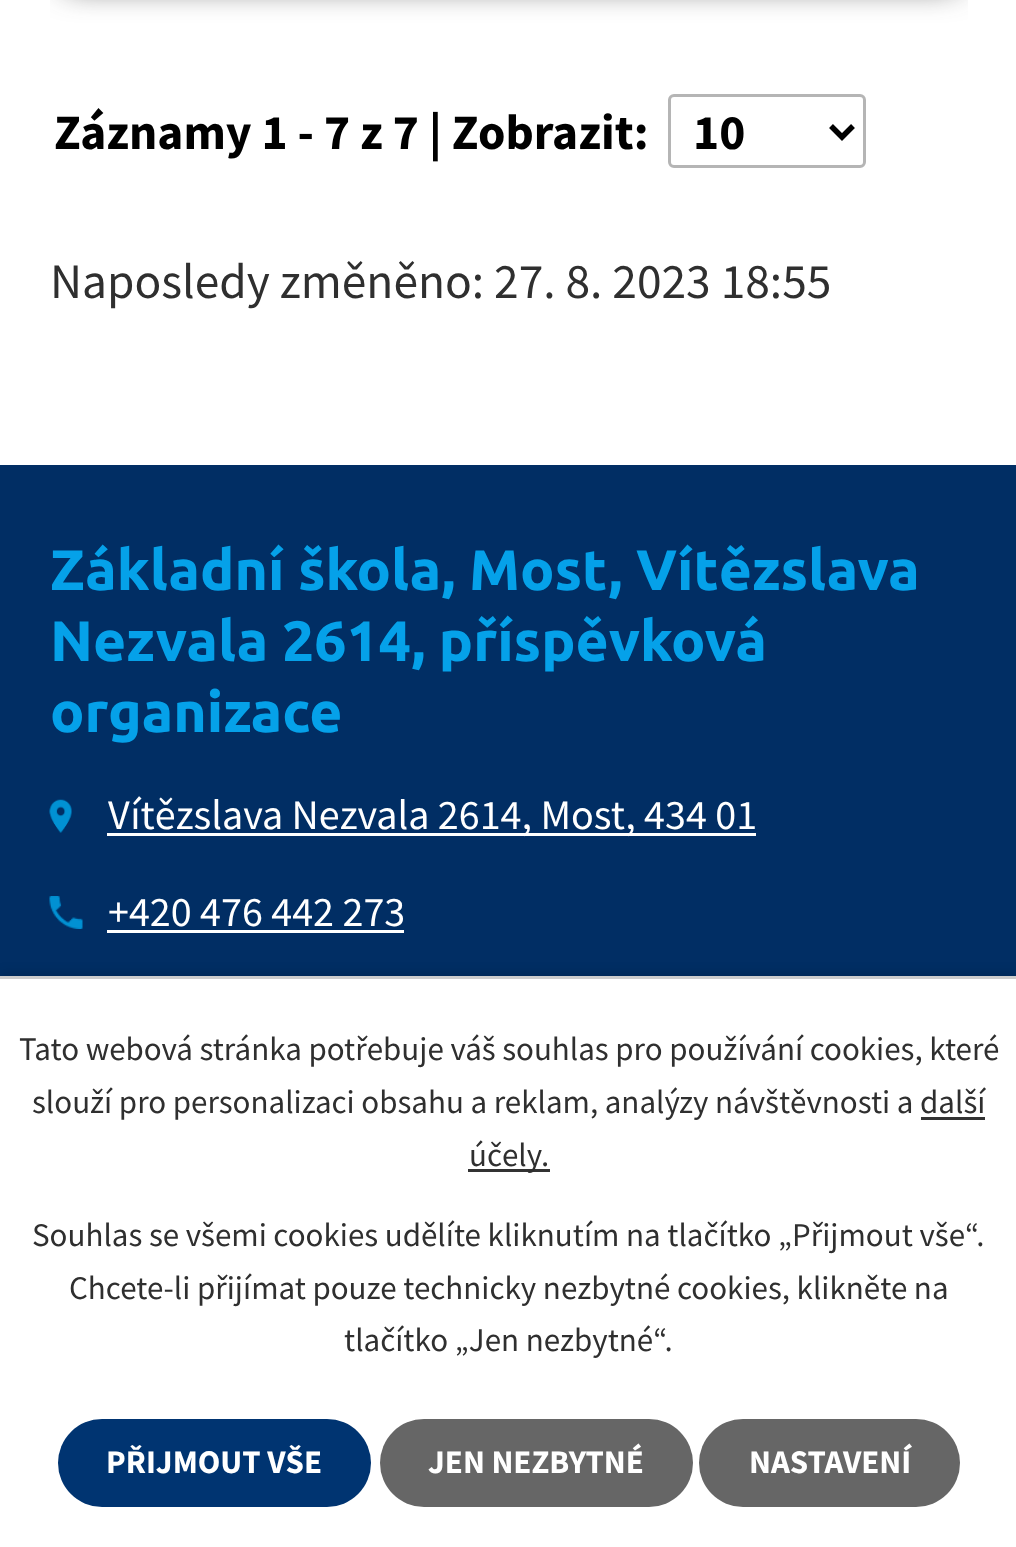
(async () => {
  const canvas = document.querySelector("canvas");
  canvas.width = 1016;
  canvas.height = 1547;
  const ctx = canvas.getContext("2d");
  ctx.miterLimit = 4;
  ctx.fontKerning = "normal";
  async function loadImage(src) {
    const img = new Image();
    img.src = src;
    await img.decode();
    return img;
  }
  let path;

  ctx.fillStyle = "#ffffff";
  ctx.fillRect(0, 0, 1016, 1547);
  ctx.save();
  ctx.beginPath();
  ctx.rect(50, 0, 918, 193);
  ctx.clip();
  ctx.fillStyle = "#2f2f2f";
  ctx.filter = "blur(16.5px)";
  ctx.beginPath();
  ctx.rect(66, -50, 891, 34);
  ctx.fill();
  ctx.filter = "none";
  ctx.restore();
  ctx.beginPath();
  ctx.roundRect(669.5, 95.5, 195, 71, 4.5);
  ctx.strokeStyle = "#b5b5b5";
  ctx.lineWidth = 3;
  ctx.stroke();
  path = new Path2D("M831 126L842 137L853 126");
  ctx.strokeStyle = "#000000";
  ctx.lineWidth = 5.5;
  ctx.stroke(path);
  ctx.fillStyle = "#012e64";
  ctx.fillRect(0, 465, 1016, 511);
  ctx.drawImage(await loadImage("img/1.png"), 49, 799, 23, 34);
  ctx.fillStyle = "#ffffff";
  ctx.fillRect(107, 833, 649, 3);
  ctx.drawImage(await loadImage("img/2.png"), 49, 896, 34, 33);
  ctx.fillRect(107, 930, 297, 3);
  ctx.fillStyle = "rgba(0, 0, 0, 0.2)";
  ctx.filter = "blur(7px)";
  ctx.beginPath();
  ctx.rect(0, 976, 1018, 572);
  ctx.fill();
  ctx.filter = "none";
  for (const [x, y, w, h, color] of [
    [0, 979, 1016, 568, "#ffffff"],
    [0, 976, 1016, 3, "#cccccc"],
    [468, 1169, 82, 3, "#333333"],
  ]) {
    ctx.fillStyle = color;
    ctx.fillRect(x, y, w, h);
  }
  ctx.fillStyle = "#003471";
  ctx.beginPath();
  ctx.roundRect(58, 1419, 313, 88, 44);
  ctx.fill();
  ctx.fillStyle = "#666666";
  ctx.beginPath();
  ctx.roundRect(380, 1419, 313, 88, 44);
  ctx.fill();
  ctx.beginPath();
  ctx.roundRect(699, 1419, 261, 88, 44);
  ctx.fill();
  ctx.font = "bold 49.5px Source Sans Pro";
  ctx.fillStyle = "#000000";
  ctx.fillText("Záznamy 1 - 7 z 7 | Zobrazit:", 54, 149);
  ctx.fillText("10", 693, 149);
  ctx.font = "49.5px Source Sans Pro";
  ctx.fillStyle = "#2f2f2f";
  ctx.fillText("Naposledy změněno: 27. 8. 2023 18:55", 50, 298);
  ctx.font = "bold 56.9px Ubuntu";
  ctx.fillStyle = "#05a1e9";
  for (const [text, x, y] of [
    ["Základní škola, Most, Vítězslava", 50, 590],
    ["Nezvala 2614, příspěvková", 50, 661],
    ["organizace", 50, 732],
  ]) {
    ctx.fillText(text, x, y);
  }
  ctx.font = "42.1px Source Sans Pro";
  ctx.fillStyle = "#ffffff";
  ctx.fillText("Vítězslava Nezvala 2614, Most, 434 01", 108, 829);
  ctx.fillText("+420 476 442 273", 108, 926);
  ctx.font = "33px Source Sans Pro";
  ctx.fillStyle = "#2f2f2f";
  for (const [text, x, y] of [
    ["Tato webová stránka potřebuje váš souhlas pro používání cookies, které", 19, 1060],
    ["slouží pro personalizaci obsahu a reklam, analýzy návštěvnosti a další", 32, 1113],
    ["účely.", 469, 1166],
  ]) {
    ctx.fillText(text, x, y);
  }
  ctx.fillStyle = "#333333";
  ctx.fillRect(921, 1117, 64, 3);
  ctx.fillStyle = "#2f2f2f";
  for (const [text, x, y] of [
    ["Souhlas se všemi cookies udělíte kliknutím na tlačítko „Přijmout vše“.", 32, 1246],
    ["Chcete-li přijímat pouze technicky nezbytné cookies, klikněte na", 69, 1299],
    ["tlačítko „Jen nezbytné“.", 344, 1351],
  ]) {
    ctx.fillText(text, x, y);
  }
  ctx.font = "bold 33px Source Sans Pro";
  ctx.fillStyle = "#ffffff";
  for (const [text, x, y] of [
    ["PŘIJMOUT VŠE", 106, 1473],
    ["JEN NEZBYTNÉ", 428, 1473],
    ["NASTAVENÍ", 749, 1473],
  ]) {
    ctx.fillText(text, x, y);
  }
})();
